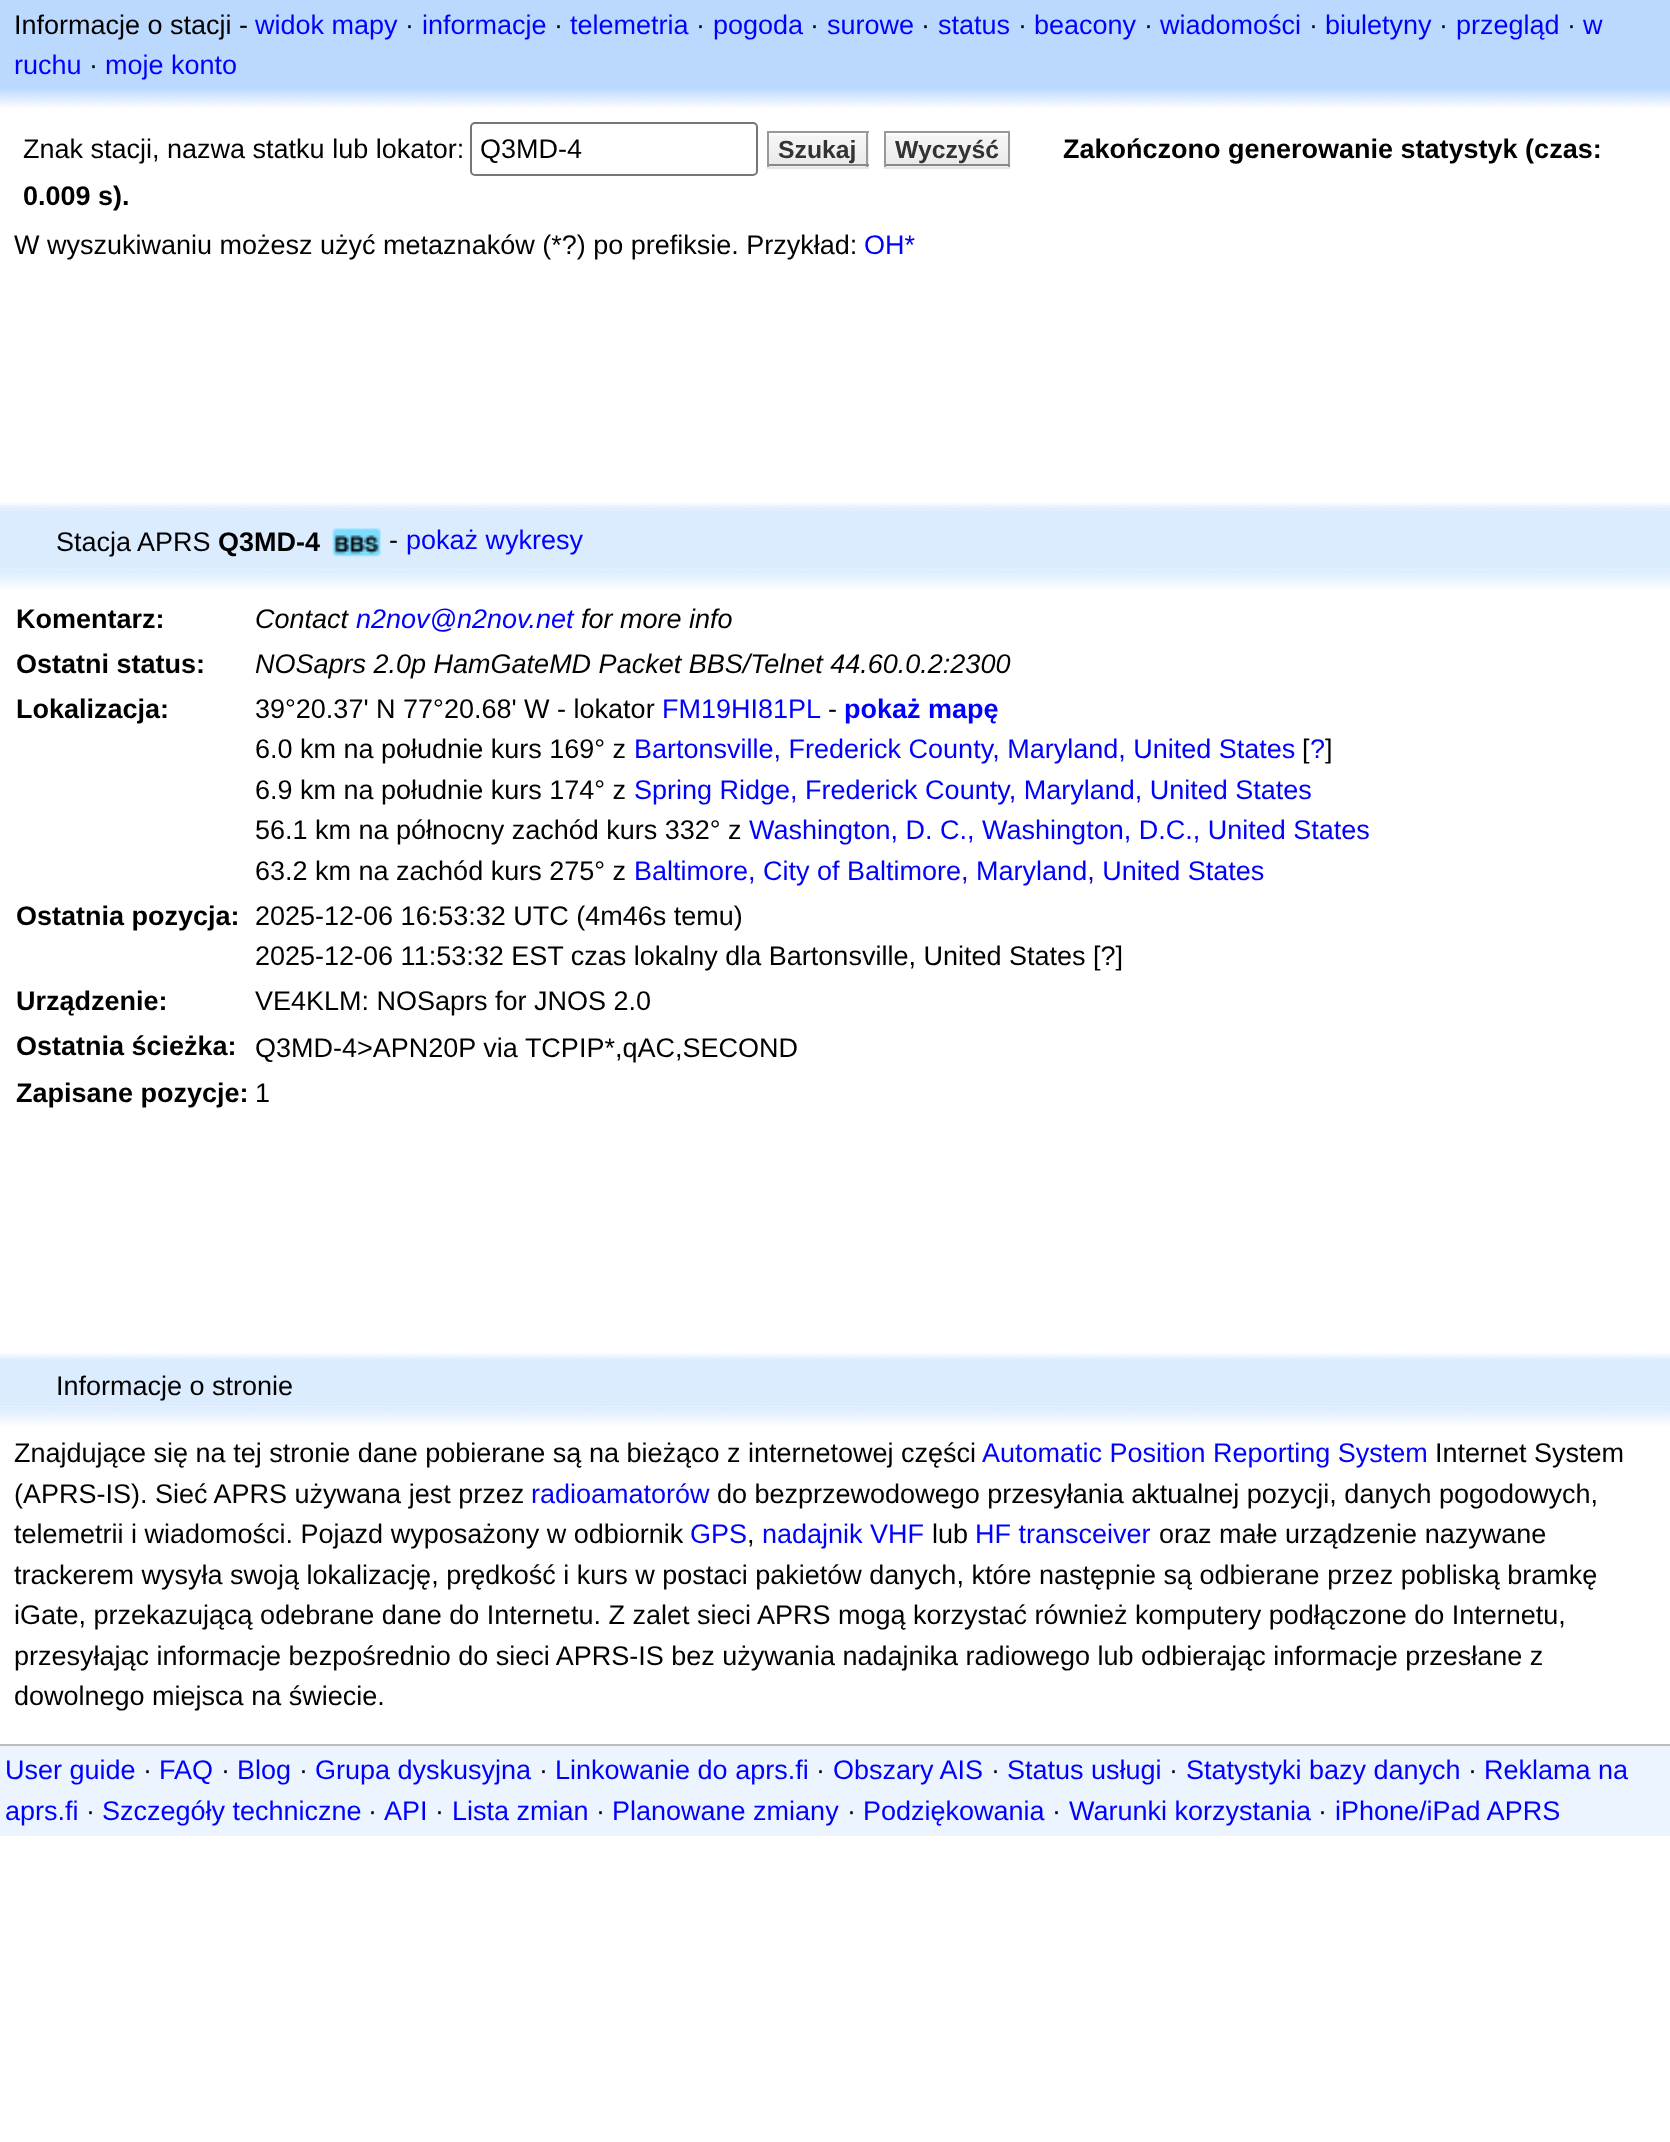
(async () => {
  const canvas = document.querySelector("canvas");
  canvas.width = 1670;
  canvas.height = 2142;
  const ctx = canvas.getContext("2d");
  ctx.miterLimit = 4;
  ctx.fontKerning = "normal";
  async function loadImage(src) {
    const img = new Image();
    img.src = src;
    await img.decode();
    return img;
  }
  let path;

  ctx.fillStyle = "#ffffff";
  ctx.fillRect(0, 0, 1670, 2142);
  ctx.fillStyle = "#bbd9ff";
  ctx.fillRect(0, 0, 1670, 86);
  ctx.drawImage(await loadImage("img/1.png"), 0, 86, 1670, 22);
  ctx.beginPath();
  ctx.roundRect(471, 123, 286, 52, 4);
  ctx.strokeStyle = "#767676";
  ctx.lineWidth = 2;
  ctx.stroke();
  ctx.fillStyle = "#e6e6e6";
  path = new Path2D("M767 133V169H869V133H868V166H767Z");
  ctx.fill(path);
  ctx.fillStyle = "#eeeeee";
  ctx.fillRect(769, 133, 100, 34);
  ctx.drawImage(await loadImage("img/2.png"), 769, 133, 100, 31);
  for (const [x, y, w, h, color] of [
    [767, 131, 102, 2, "#999999"],
    [866, 131, 2, 36, "#999999"],
    [767, 164, 102, 2, "#888888"],
    [767, 131, 2, 36, "#999999"],
  ]) {
    ctx.fillStyle = color;
    ctx.fillRect(x, y, w, h);
  }
  ctx.fillStyle = "#e6e6e6";
  path = new Path2D("M884 133V169H1010V166H884Z");
  ctx.fill(path);
  ctx.fillStyle = "#eeeeee";
  ctx.fillRect(886, 133, 122, 34);
  ctx.drawImage(await loadImage("img/3.png"), 886, 132, 125, 34);
  for (const [x, y, w, h, color] of [
    [884, 131, 126, 2, "#999999"],
    [1008, 131, 2, 36, "#999999"],
    [884, 164, 126, 2, "#888888"],
    [884, 131, 2, 36, "#999999"],
  ]) {
    ctx.fillStyle = color;
    ctx.fillRect(x, y, w, h);
  }
  ctx.drawImage(await loadImage("img/4.png"), 0, 503, 1670, 8);
  ctx.fillStyle = "#dcecff";
  ctx.fillRect(0, 511, 1670, 58);
  ctx.drawImage(await loadImage("img/5.png"), 332, 528, 49, 29);
  ctx.drawImage(await loadImage("img/6.png"), 0, 569, 1670, 20);
  ctx.drawImage(await loadImage("img/7.png"), 0, 1353, 1670, 8);
  ctx.fillRect(0, 1361, 1670, 45);
  ctx.drawImage(await loadImage("img/8.png"), 0, 1406, 1670, 20);
  ctx.fillStyle = "#ebf4ff";
  ctx.fillRect(0, 1746, 1670, 90);
  ctx.fillStyle = "#bdbdbd";
  ctx.fillRect(0, 1744, 1670, 2);
  ctx.font = "27px Liberation Sans";
  ctx.fillStyle = "#000000";
  ctx.fillText("Informacje o stacji -", 14, 34);
  ctx.fillStyle = "#0000ff";
  ctx.fillText("widok mapy", 255, 34);
  ctx.fillStyle = "#000000";
  ctx.fillText("·", 405, 34);
  ctx.fillStyle = "#0000ff";
  ctx.fillText("informacje", 422, 34);
  ctx.fillStyle = "#000000";
  ctx.fillText("·", 554, 34);
  ctx.fillStyle = "#0000ff";
  ctx.fillText("telemetria", 570, 34);
  ctx.fillStyle = "#000000";
  ctx.fillText("·", 696, 34);
  ctx.fillStyle = "#0000ff";
  ctx.fillText("pogoda", 713, 34);
  ctx.fillStyle = "#000000";
  ctx.fillText("·", 810, 34);
  ctx.fillStyle = "#0000ff";
  ctx.fillText("surowe", 827, 34);
  ctx.fillStyle = "#000000";
  ctx.fillText("·", 921, 34);
  ctx.fillStyle = "#0000ff";
  ctx.fillText("status", 938, 34);
  ctx.fillStyle = "#000000";
  ctx.fillText("·", 1018, 34);
  ctx.fillStyle = "#0000ff";
  ctx.fillText("beacony", 1034, 34);
  ctx.fillStyle = "#000000";
  ctx.fillText("·", 1144, 34);
  ctx.fillStyle = "#0000ff";
  ctx.fillText("wiadomości", 1160, 34);
  ctx.fillStyle = "#000000";
  ctx.fillText("·", 1309, 34);
  ctx.fillStyle = "#0000ff";
  ctx.fillText("biuletyny", 1325, 34);
  ctx.fillStyle = "#000000";
  ctx.fillText("·", 1439, 34);
  ctx.fillStyle = "#0000ff";
  ctx.fillText("przegląd", 1456, 34);
  ctx.fillStyle = "#000000";
  ctx.fillText("·", 1567, 34);
  ctx.fillStyle = "#0000ff";
  ctx.fillText("w", 1583, 34);
  ctx.fillText("ruchu", 14, 74);
  ctx.fillStyle = "#000000";
  ctx.fillText("·", 89, 74);
  ctx.fillStyle = "#0000ff";
  ctx.fillText("moje konto", 105, 74);
  ctx.fillStyle = "#000000";
  ctx.fillText("Znak stacji, nazwa statku lub lokator:", 23, 158);
  ctx.fillText("Q3MD-4", 480, 158);
  ctx.font = "bold 24.75px Liberation Sans";
  ctx.fillStyle = "#333333";
  ctx.fillText("Szukaj", 778, 158);
  ctx.fillText("Wyczyść", 895, 158);
  ctx.font = "bold 27px Liberation Sans";
  ctx.fillStyle = "#000000";
  ctx.fillText("Zakończono generowanie statystyk (czas:", 1063, 158);
  ctx.fillText("0.009 s).", 23, 205);
  ctx.font = "27px Liberation Sans";
  ctx.fillText("W wyszukiwaniu możesz użyć metaznaków (*?) po prefiksie. Przykład:", 14, 254);
  ctx.fillStyle = "#0000ff";
  ctx.fillText("OH*", 864, 254);
  ctx.fillStyle = "#000000";
  ctx.fillText("Stacja APRS", 56, 551);
  ctx.font = "bold 27px Liberation Sans";
  ctx.fillText("Q3MD-4", 218, 551);
  ctx.font = "27px Liberation Sans";
  ctx.fillText("-", 389, 549);
  ctx.fillStyle = "#0000ff";
  ctx.fillText("pokaż wykresy", 406, 549);
  ctx.font = "bold 27px Liberation Sans";
  ctx.fillStyle = "#000000";
  ctx.fillText("Komentarz:", 16, 628);
  ctx.font = "italic 27px Liberation Sans";
  ctx.fillText("Contact", 255, 628);
  ctx.fillStyle = "#0000ff";
  ctx.fillText("n2nov@n2nov.net", 356, 628);
  ctx.fillStyle = "#000000";
  ctx.fillText("for more info", 581, 628);
  ctx.font = "bold 27px Liberation Sans";
  ctx.fillText("Ostatni status:", 16, 673);
  ctx.font = "italic 27px Liberation Sans";
  ctx.fillText("NOSaprs 2.0p HamGateMD Packet BBS/Telnet 44.60.0.2:2300", 255, 673);
  ctx.font = "bold 27px Liberation Sans";
  ctx.fillText("Lokalizacja:", 16, 718);
  ctx.font = "27px Liberation Sans";
  ctx.fillText("39°20.37' N 77°20.68' W - lokator", 255, 718);
  ctx.fillStyle = "#0000ff";
  ctx.fillText("FM19HI81PL", 662, 718);
  ctx.fillStyle = "#000000";
  ctx.fillText("-", 828, 718);
  ctx.font = "bold 27px Liberation Sans";
  ctx.fillStyle = "#0000ff";
  ctx.fillText("pokaż mapę", 844, 718);
  ctx.font = "27px Liberation Sans";
  ctx.fillStyle = "#000000";
  ctx.fillText("6.0 km na południe kurs 169° z", 255, 758);
  ctx.fillStyle = "#0000ff";
  ctx.fillText("Bartonsville, Frederick County, Maryland, United States", 634, 758);
  ctx.fillStyle = "#000000";
  ctx.fillText("[", 1302, 758);
  ctx.fillStyle = "#0000ff";
  ctx.fillText("?", 1310, 758);
  ctx.fillStyle = "#000000";
  ctx.fillText("]", 1325, 758);
  ctx.fillText("6.9 km na południe kurs 174° z", 255, 799);
  ctx.fillStyle = "#0000ff";
  ctx.fillText("Spring Ridge, Frederick County, Maryland, United States", 634, 799);
  ctx.fillStyle = "#000000";
  ctx.fillText("56.1 km na północny zachód kurs 332° z", 255, 839);
  ctx.fillStyle = "#0000ff";
  ctx.fillText("Washington, D. C., Washington, D.C., United States", 749, 839);
  ctx.fillStyle = "#000000";
  ctx.fillText("63.2 km na zachód kurs 275° z", 255, 880);
  ctx.fillStyle = "#0000ff";
  ctx.fillText("Baltimore, City of Baltimore, Maryland, United States", 634, 880);
  ctx.font = "bold 27px Liberation Sans";
  ctx.fillStyle = "#000000";
  ctx.fillText("Ostatnia pozycja:", 16, 925);
  ctx.font = "27px Liberation Sans";
  ctx.fillText("2025-12-06 16:53:32 UTC (4m46s temu)", 255, 925);
  ctx.fillText("2025-12-06 11:53:32 EST czas lokalny dla Bartonsville, United States [?]", 255, 965);
  ctx.font = "bold 27px Liberation Sans";
  ctx.fillText("Urządzenie:", 16, 1010);
  ctx.font = "27px Liberation Sans";
  ctx.fillText("VE4KLM: NOSaprs for JNOS 2.0", 255, 1010);
  ctx.font = "bold 27px Liberation Sans";
  ctx.fillText("Ostatnia ścieżka:", 16, 1055);
  ctx.font = "27px Liberation Sans";
  ctx.fillText("Q3MD-4>APN20P via TCPIP*,qAC,SECOND", 255, 1057);
  ctx.font = "bold 27px Liberation Sans";
  ctx.fillText("Zapisane pozycje:", 16, 1102);
  ctx.font = "27px Liberation Sans";
  for (const [text, x, y] of [
    ["1", 255, 1102],
    ["Informacje o stronie", 56, 1395],
    ["Znajdujące się na tej stronie dane pobierane są na bieżąco z internetowej części", 14, 1462],
  ]) {
    ctx.fillText(text, x, y);
  }
  ctx.fillStyle = "#0000ff";
  ctx.fillText("Automatic Position Reporting System", 982, 1462);
  ctx.fillStyle = "#000000";
  ctx.fillText("Internet System", 1435, 1462);
  ctx.fillText("(APRS-IS). Sieć APRS używana jest przez", 14, 1503);
  ctx.fillStyle = "#0000ff";
  ctx.fillText("radioamatorów", 531, 1503);
  ctx.fillStyle = "#000000";
  ctx.fillText("do bezprzewodowego przesyłania aktualnej pozycji, danych pogodowych,", 717, 1503);
  ctx.fillText("telemetrii i wiadomości. Pojazd wyposażony w odbiornik", 14, 1543);
  ctx.fillStyle = "#0000ff";
  ctx.fillText("GPS", 690, 1543);
  ctx.fillStyle = "#000000";
  ctx.fillText(",", 747, 1543);
  ctx.fillStyle = "#0000ff";
  ctx.fillText("nadajnik VHF", 762, 1543);
  ctx.fillStyle = "#000000";
  ctx.fillText("lub", 932, 1543);
  ctx.fillStyle = "#0000ff";
  ctx.fillText("HF transceiver", 975, 1543);
  ctx.fillStyle = "#000000";
  for (const [text, x, y] of [
    ["oraz małe urządzenie nazywane", 1159, 1543],
    ["trackerem wysyła swoją lokalizację, prędkość i kurs w postaci pakietów danych, które następnie są odbierane przez pobliską bramkę", 14, 1584],
    ["iGate, przekazującą odebrane dane do Internetu. Z zalet sieci APRS mogą korzystać również komputery podłączone do Internetu,", 14, 1624],
    ["przesyłając informacje bezpośrednio do sieci APRS-IS bez używania nadajnika radiowego lub odbierając informacje przesłane z", 14, 1665],
    ["dowolnego miejsca na świecie.", 14, 1705],
  ]) {
    ctx.fillText(text, x, y);
  }
  ctx.fillStyle = "#0000ff";
  ctx.fillText("User guide", 5, 1779);
  ctx.fillStyle = "#000000";
  ctx.fillText("·", 143, 1779);
  ctx.fillStyle = "#0000ff";
  ctx.fillText("FAQ", 159, 1779);
  ctx.fillStyle = "#000000";
  ctx.fillText("·", 221, 1779);
  ctx.fillStyle = "#0000ff";
  ctx.fillText("Blog", 237, 1779);
  ctx.fillStyle = "#000000";
  ctx.fillText("·", 299, 1779);
  ctx.fillStyle = "#0000ff";
  ctx.fillText("Grupa dyskusyjna", 315, 1779);
  ctx.fillStyle = "#000000";
  ctx.fillText("·", 539, 1779);
  ctx.fillStyle = "#0000ff";
  ctx.fillText("Linkowanie do aprs.fi", 555, 1779);
  ctx.fillStyle = "#000000";
  ctx.fillText("·", 816, 1779);
  ctx.fillStyle = "#0000ff";
  ctx.fillText("Obszary AIS", 833, 1779);
  ctx.fillStyle = "#000000";
  ctx.fillText("·", 991, 1779);
  ctx.fillStyle = "#0000ff";
  ctx.fillText("Status usługi", 1007, 1779);
  ctx.fillStyle = "#000000";
  ctx.fillText("·", 1169, 1779);
  ctx.fillStyle = "#0000ff";
  ctx.fillText("Statystyki bazy danych", 1186, 1779);
  ctx.fillStyle = "#000000";
  ctx.fillText("·", 1468, 1779);
  ctx.fillStyle = "#0000ff";
  ctx.fillText("Reklama na", 1484, 1779);
  ctx.fillText("aprs.fi", 5, 1820);
  ctx.fillStyle = "#000000";
  ctx.fillText("·", 86, 1820);
  ctx.fillStyle = "#0000ff";
  ctx.fillText("Szczegóły techniczne", 102, 1820);
  ctx.fillStyle = "#000000";
  ctx.fillText("·", 368, 1820);
  ctx.fillStyle = "#0000ff";
  ctx.fillText("API", 384, 1820);
  ctx.fillStyle = "#000000";
  ctx.fillText("·", 435, 1820);
  ctx.fillStyle = "#0000ff";
  ctx.fillText("Lista zmian", 452, 1820);
  ctx.fillStyle = "#000000";
  ctx.fillText("·", 596, 1820);
  ctx.fillStyle = "#0000ff";
  ctx.fillText("Planowane zmiany", 612, 1820);
  ctx.fillStyle = "#000000";
  ctx.fillText("·", 847, 1820);
  ctx.fillStyle = "#0000ff";
  ctx.fillText("Podziękowania", 863, 1820);
  ctx.fillStyle = "#000000";
  ctx.fillText("·", 1052, 1820);
  ctx.fillStyle = "#0000ff";
  ctx.fillText("Warunki korzystania", 1069, 1820);
  ctx.fillStyle = "#000000";
  ctx.fillText("·", 1318, 1820);
  ctx.fillStyle = "#0000ff";
  ctx.fillText("iPhone/iPad APRS", 1335, 1820);
})();
